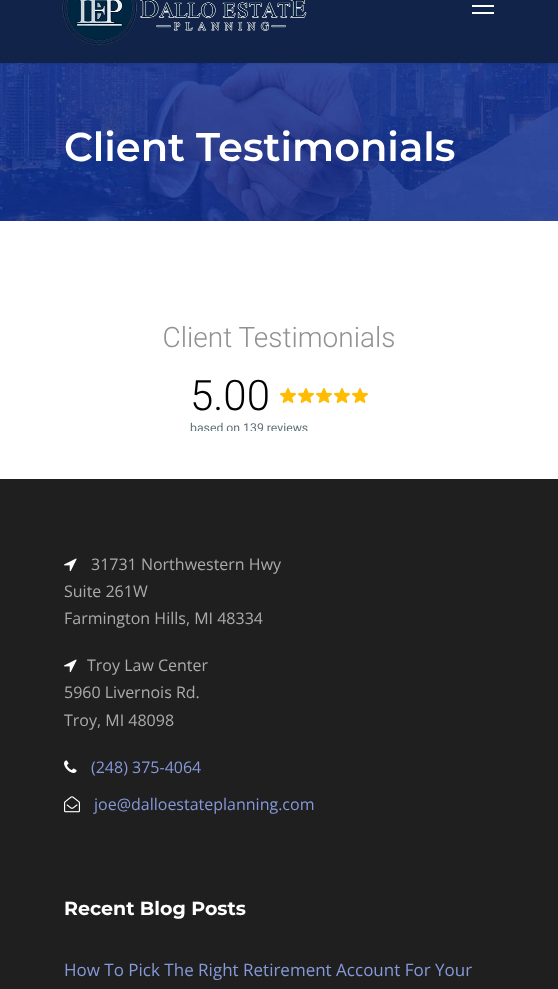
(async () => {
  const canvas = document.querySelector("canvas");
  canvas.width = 558;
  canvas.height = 989;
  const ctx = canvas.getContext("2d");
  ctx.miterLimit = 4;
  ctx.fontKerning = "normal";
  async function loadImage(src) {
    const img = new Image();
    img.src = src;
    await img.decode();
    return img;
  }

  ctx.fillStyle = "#ffffff";
  ctx.fillRect(0, 0, 558, 989);
  ctx.drawImage(await loadImage("img/2.png"), 0, 63, 558, 158);
  ctx.fillStyle = "rgba(0, 0, 0, 0.1)";
  ctx.filter = "blur(1px)";
  ctx.beginPath();
  ctx.rect(0, 1, 558, 63);
  ctx.fill();
  ctx.filter = "none";
  ctx.fillStyle = "#112349";
  ctx.fillRect(0, 0, 558, 63);
  ctx.drawImage(await loadImage("img/1.png"), 62, 0, 245, 45);
  ctx.fillStyle = "#ffffff";
  ctx.fillRect(472, 5, 22, 2);
  ctx.fillRect(472, 12, 22, 2);
  ctx.drawImage(await loadImage("img/3.png"), 164, 326, 230, 105);
  ctx.fillStyle = "#1f1f1f";
  ctx.fillRect(0, 479, 558, 510);
  ctx.drawImage(await loadImage("img/4.png"), 64, 558, 13, 14);
  ctx.drawImage(await loadImage("img/4.png"), 64, 659, 13, 14);
  ctx.drawImage(await loadImage("img/5.png"), 64, 760, 13, 13);
  ctx.drawImage(await loadImage("img/6.png"), 64, 796, 16, 17);
  ctx.font = "600 40px Montserrat";
  ctx.fillStyle = "#ffffff";
  ctx.fillText("Client Testimonials", 64, 161);
  ctx.font = "16px Open Sans";
  ctx.fillStyle = "#ababab";
  for (const [text, x, y] of [
    ["31731 Northwestern Hwy", 91, 570],
    ["Suite 261W", 64, 597],
    ["Farmington Hills, MI 48334", 64, 624],
    ["Troy Law Center", 87, 671],
    ["5960 Livernois Rd.", 64, 698],
    ["Troy, MI 48098", 64, 726],
  ]) {
    ctx.fillText(text, x, y);
  }
  ctx.fillStyle = "#8699d8";
  ctx.fillText("(248) 375-4064", 91, 773);
  ctx.fillText("joe@dalloestateplanning.com", 94, 810);
  ctx.font = "bold 19px Montserrat";
  ctx.fillStyle = "#ffffff";
  ctx.fillText("Recent Blog Posts", 64, 915);
  ctx.font = "17px Open Sans";
  ctx.fillStyle = "#8699d8";
  ctx.fillText("How To Pick The Right Retirement Account For Your", 64, 976);
})();
